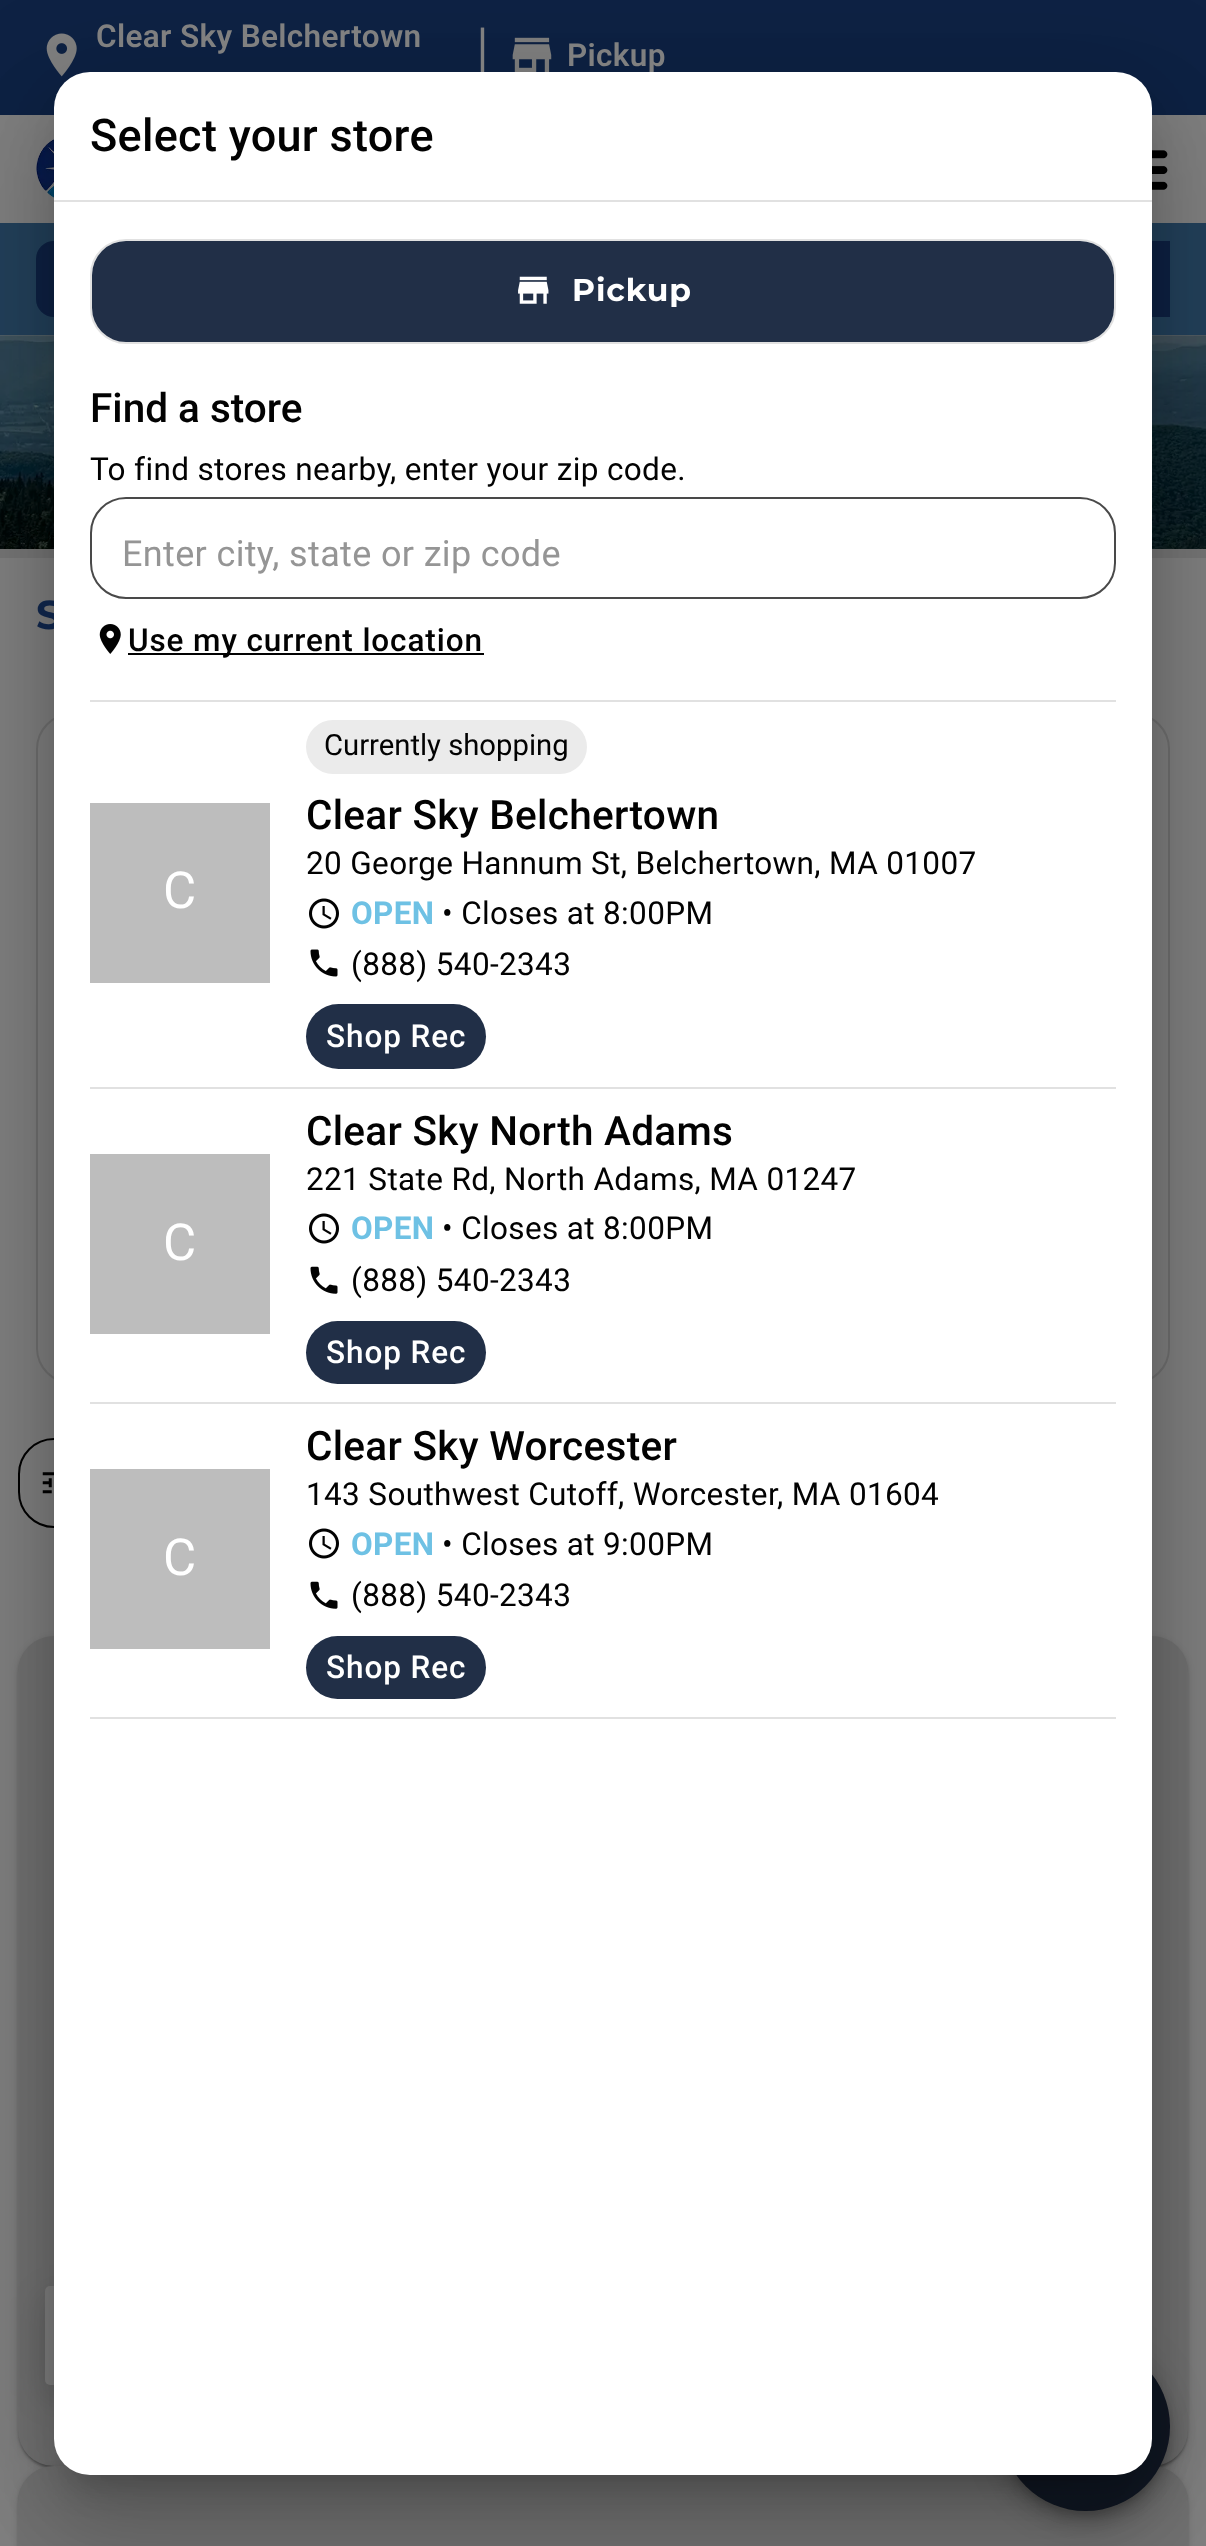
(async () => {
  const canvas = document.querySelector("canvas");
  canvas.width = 1206;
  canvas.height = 2546;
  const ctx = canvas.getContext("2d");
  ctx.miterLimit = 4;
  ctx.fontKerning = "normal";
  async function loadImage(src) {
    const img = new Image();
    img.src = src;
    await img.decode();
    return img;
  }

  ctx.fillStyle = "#808080";
  ctx.fillRect(0, 0, 1206, 2546);
  ctx.fillStyle = "#0e2244";
  ctx.fillRect(0, 0, 1206, 115);
  ctx.drawImage(await loadImage("img/1.png"), 46, 33, 31, 44);
  ctx.drawImage(await loadImage("img/2.png"), 512, 37, 40, 35);
  ctx.drawImage(await loadImage("img/3.png"), 36, 139, 18, 59);
  ctx.drawImage(await loadImage("img/4.png"), 1152, 150, 16, 40);
  ctx.fillStyle = "#23415b";
  ctx.fillRect(0, 223, 1206, 112);
  ctx.fillStyle = "#0e2244";
  ctx.beginPath();
  ctx.roundRect(37, 242, 230, 74, 17);
  ctx.fill();
  ctx.strokeStyle = "#0e2244";
  ctx.lineWidth = 2;
  ctx.stroke();
  ctx.fillRect(1152, 243, 18, 72);
  ctx.save();
  ctx.beginPath();
  ctx.rect(36, 241, 1134, 76);
  ctx.clip();
  ctx.beginPath();
  ctx.roundRect(1095, 242, 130, 74, 17);
  ctx.stroke();
  ctx.restore();
  ctx.drawImage(await loadImage("img/5.png"), 0, 335, 1206, 214);
  ctx.fillStyle = "#767676";
  ctx.fillRect(0, 549, 1206, 9);
  ctx.beginPath();
  ctx.roundRect(37, 714, 1132, 669, 35);
  ctx.strokeStyle = "#717171";
  ctx.stroke();
  ctx.beginPath();
  ctx.roundRect(19, 1439, 234, 88, 35);
  ctx.strokeStyle = "#010101";
  ctx.stroke();
  ctx.drawImage(await loadImage("img/6.png"), 42, 1472, 12, 22);
  ctx.fillStyle = "rgba(0, 0, 0, 0.12)";
  ctx.filter = "blur(3.5px)";
  ctx.beginPath();
  ctx.roundRect(18, 1638, 1170, 830, 36);
  ctx.fill();
  ctx.filter = "none";
  ctx.fillStyle = "rgba(0, 0, 0, 0.14)";
  ctx.filter = "blur(1px)";
  ctx.beginPath();
  ctx.roundRect(18, 1638, 1170, 830, 36);
  ctx.fill();
  ctx.filter = "none";
  ctx.fillStyle = "rgba(0, 0, 0, 0.2)";
  ctx.filter = "blur(1px)";
  ctx.beginPath();
  ctx.roundRect(20, 1643, 1166, 825, 34);
  ctx.fill();
  ctx.filter = "none";
  ctx.fillStyle = "#808080";
  ctx.beginPath();
  ctx.roundRect(18, 1636, 1170, 830, 36);
  ctx.fill();
  ctx.fillStyle = "rgba(1, 1, 1, 0.11)";
  ctx.beginPath();
  ctx.roundRect(18, 1636, 1170, 830, 36);
  ctx.fill();
  ctx.fillStyle = "rgba(0, 0, 0, 0.12)";
  ctx.filter = "blur(3.5px)";
  ctx.beginPath();
  ctx.roundRect(18, 2468, 1170, 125, 36);
  ctx.fill();
  ctx.filter = "none";
  ctx.fillStyle = "rgba(0, 0, 0, 0.14)";
  ctx.filter = "blur(1px)";
  ctx.beginPath();
  ctx.roundRect(18, 2468, 1170, 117, 36);
  ctx.fill();
  ctx.filter = "none";
  ctx.fillStyle = "#808080";
  ctx.beginPath();
  ctx.roundRect(18, 2466, 1170, 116, 36);
  ctx.fill();
  ctx.fillStyle = "rgba(1, 1, 1, 0.11)";
  ctx.beginPath();
  ctx.roundRect(18, 2466, 1170, 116, 36);
  ctx.fill();
  ctx.fillStyle = "rgba(0, 0, 0, 0.15)";
  ctx.filter = "blur(17px)";
  ctx.beginPath();
  ctx.roundRect(45, 2297, 212, 99, 5);
  ctx.fill();
  ctx.filter = "none";
  ctx.fillStyle = "#808080";
  ctx.beginPath();
  ctx.roundRect(45, 2286, 212, 99, 5);
  ctx.fill();
  ctx.fillStyle = "rgba(0, 0, 0, 0.12)";
  ctx.filter = "blur(20px)";
  ctx.beginPath();
  ctx.roundRect(1001, 2345, 169, 168, 84);
  ctx.fill();
  ctx.filter = "none";
  ctx.fillStyle = "rgba(0, 0, 0, 0.14)";
  ctx.filter = "blur(11px)";
  ctx.beginPath();
  ctx.roundRect(1001, 2356, 169, 169, 84.5);
  ctx.fill();
  ctx.filter = "none";
  ctx.fillStyle = "rgba(0, 0, 0, 0.2)";
  ctx.filter = "blur(5.5px)";
  ctx.beginPath();
  ctx.roundRect(1004, 2351, 164, 165, 82);
  ctx.fill();
  ctx.filter = "none";
  ctx.fillStyle = "#111824";
  ctx.beginPath();
  ctx.arc(1085.5, 2426.5, 84.5, 0, Math.PI * 2);
  ctx.fill();
  ctx.fillStyle = "rgba(0, 0, 0, 0.12)";
  ctx.filter = "blur(52px)";
  ctx.beginPath();
  ctx.roundRect(36, 74, 1134, 2439, 54);
  ctx.fill();
  ctx.filter = "none";
  ctx.fillStyle = "rgba(0, 0, 0, 0.14)";
  ctx.filter = "blur(43px)";
  ctx.beginPath();
  ctx.roundRect(47, 119, 1112, 2417, 43);
  ctx.fill();
  ctx.filter = "none";
  ctx.fillStyle = "rgba(0, 0, 0, 0.2)";
  ctx.filter = "blur(17px)";
  ctx.beginPath();
  ctx.roundRect(70, 113, 1066, 2371, 20);
  ctx.fill();
  ctx.filter = "none";
  ctx.letterSpacing = "0.35px";
  ctx.font = "600 31.5px Roboto";
  ctx.fillStyle = "#808080";
  ctx.fillText("Clear Sky Belchertown", 96, 47);
  ctx.letterSpacing = "0px";
  ctx.font = "300 72px Montserrat";
  ctx.fillText("|", 472, 81);
  ctx.letterSpacing = "0.35px";
  ctx.font = "600 31.5px Roboto";
  ctx.fillText("Pickup", 567, 66);
  ctx.letterSpacing = "0px";
  ctx.font = "bold 40.5px Montserrat";
  ctx.fillStyle = "#0e2244";
  ctx.fillText("S", 36, 629);
  ctx.fillStyle = "#ffffff";
  ctx.beginPath();
  ctx.roundRect(54, 72, 1098, 2403, 36);
  ctx.fill();
  ctx.fillStyle = "#e1e1e1";
  ctx.fillRect(54, 200, 1098, 2);
  ctx.letterSpacing = "0.3px";
  ctx.font = "500 45px Roboto";
  ctx.fillStyle = "#020202";
  ctx.fillText("Select your store", 90, 151);
  ctx.beginPath();
  ctx.roundRect(91, 240, 1024, 103, 35);
  ctx.strokeStyle = "#e1e1e1";
  ctx.stroke();
  ctx.fillStyle = "#212f47";
  ctx.beginPath();
  ctx.roundRect(92, 241, 1022, 101, 34);
  ctx.fill();
  ctx.drawImage(await loadImage("img/7.png"), 518, 276, 31, 28);
  ctx.letterSpacing = "0.9px";
  ctx.font = "bold 31.5px Montserrat";
  ctx.fillStyle = "#ffffff";
  ctx.fillText("Pickup", 572, 301);
  ctx.letterSpacing = "0px";
  ctx.font = "500 40.5px Roboto";
  ctx.fillStyle = "#020202";
  ctx.fillText("Find a store", 90, 422);
  ctx.letterSpacing = "0.35px";
  ctx.font = "31.5px Roboto";
  ctx.fillText("To find stores nearby, enter your zip code.", 90, 480);
  ctx.beginPath();
  ctx.roundRect(91, 498, 1024, 100, 35);
  ctx.strokeStyle = "#494949";
  ctx.stroke();
  ctx.font = "36px Roboto";
  ctx.fillStyle = "#959595";
  ctx.fillText("Enter city, state or zip code", 122, 566);
  ctx.drawImage(await loadImage("img/8.png"), 99, 624, 22, 30);
  ctx.fillStyle = "#020202";
  ctx.fillRect(128, 653, 356, 2);
  ctx.letterSpacing = "0.9px";
  ctx.font = "500 31.5px Roboto";
  ctx.fillText("Use my current location", 128, 651);
  for (const [x, y, w, h, color] of [
    [90, 700, 1026, 2, "#e1e1e1"],
    [90, 1087, 1026, 2, "#e1e1e1"],
    [90, 803, 180, 180, "#bdbdbd"],
  ]) {
    ctx.fillStyle = color;
    ctx.fillRect(x, y, w, h);
  }
  ctx.letterSpacing = "0px";
  ctx.font = "51px Roboto";
  ctx.fillStyle = "#ffffff";
  ctx.fillText("C", 163, 908);
  ctx.fillStyle = "#ebebeb";
  ctx.beginPath();
  ctx.roundRect(306, 720, 281, 54, 27);
  ctx.fill();
  ctx.font = "29.25px Roboto";
  ctx.fillStyle = "#020202";
  ctx.fillText("Currently shopping", 324, 755);
  ctx.letterSpacing = "0.3px";
  ctx.font = "500 40.5px Roboto";
  ctx.fillText("Clear Sky Belchertown", 306, 829);
  ctx.letterSpacing = "0.35px";
  ctx.font = "31.5px Roboto";
  ctx.fillText("20 George Hannum St, Belchertown, MA 01007", 306, 874);
  ctx.drawImage(await loadImage("img/9.png"), 309, 898, 30, 31);
  ctx.font = "bold 31.5px Roboto";
  ctx.fillStyle = "#6ec1e4";
  ctx.fillText("OPEN", 351, 924);
  ctx.font = "31.5px Roboto";
  ctx.fillStyle = "#020202";
  ctx.fillText("• Closes at 8:00PM", 442, 924);
  ctx.drawImage(await loadImage("img/10.png"), 310, 949, 28, 28);
  ctx.fillText("(888) 540-2343", 351, 975);
  ctx.fillStyle = "#212f47";
  ctx.beginPath();
  ctx.roundRect(306, 1004, 180, 65, 32.5);
  ctx.fill();
  ctx.letterSpacing = "0.9px";
  ctx.font = "500 31.5px Roboto";
  ctx.fillStyle = "#ffffff";
  ctx.fillText("Shop Rec", 326, 1047);
  ctx.fillStyle = "#e1e1e1";
  ctx.fillRect(90, 1402, 1026, 2);
  ctx.fillStyle = "#bdbdbd";
  ctx.fillRect(90, 1154, 180, 180);
  ctx.letterSpacing = "0px";
  ctx.font = "51px Roboto";
  ctx.fillStyle = "#ffffff";
  ctx.fillText("C", 163, 1260);
  ctx.letterSpacing = "0.3px";
  ctx.font = "500 40.5px Roboto";
  ctx.fillStyle = "#020202";
  ctx.fillText("Clear Sky North Adams", 306, 1145);
  ctx.letterSpacing = "0.35px";
  ctx.font = "31.5px Roboto";
  ctx.fillText("221 State Rd, North Adams, MA 01247", 306, 1190);
  ctx.drawImage(await loadImage("img/9.png"), 309, 1213, 30, 31);
  ctx.font = "bold 31.5px Roboto";
  ctx.fillStyle = "#6ec1e4";
  ctx.fillText("OPEN", 351, 1239);
  ctx.font = "31.5px Roboto";
  ctx.fillStyle = "#020202";
  ctx.fillText("• Closes at 8:00PM", 442, 1239);
  ctx.drawImage(await loadImage("img/11.png"), 310, 1266, 28, 28);
  ctx.fillText("(888) 540-2343", 351, 1291);
  ctx.fillStyle = "#212f47";
  ctx.beginPath();
  ctx.roundRect(306, 1321, 180, 63, 31.5);
  ctx.fill();
  ctx.letterSpacing = "0.9px";
  ctx.font = "500 31.5px Roboto";
  ctx.fillStyle = "#ffffff";
  ctx.fillText("Shop Rec", 326, 1363);
  ctx.fillStyle = "#e1e1e1";
  ctx.fillRect(90, 1717, 1026, 2);
  ctx.fillStyle = "#bdbdbd";
  ctx.fillRect(90, 1469, 180, 180);
  ctx.letterSpacing = "0px";
  ctx.font = "51px Roboto";
  ctx.fillStyle = "#ffffff";
  ctx.fillText("C", 163, 1575);
  ctx.letterSpacing = "0.3px";
  ctx.font = "500 40.5px Roboto";
  ctx.fillStyle = "#020202";
  ctx.fillText("Clear Sky Worcester", 306, 1460);
  ctx.letterSpacing = "0.35px";
  ctx.font = "31.5px Roboto";
  ctx.fillText("143 Southwest Cutoff, Worcester", 306, 1505);
  ctx.fillText(", MA 01604", 777, 1505);
  ctx.drawImage(await loadImage("img/9.png"), 309, 1528, 30, 31);
  ctx.font = "bold 31.5px Roboto";
  ctx.fillStyle = "#6ec1e4";
  ctx.fillText("OPEN", 351, 1555);
  ctx.font = "31.5px Roboto";
  ctx.fillStyle = "#020202";
  ctx.fillText("• Closes at 9:00PM", 442, 1555);
  ctx.drawImage(await loadImage("img/11.png"), 310, 1581, 28, 28);
  ctx.fillText("(888) 540-2343", 351, 1606);
  ctx.fillStyle = "#212f47";
  ctx.beginPath();
  ctx.roundRect(306, 1636, 180, 63, 31.5);
  ctx.fill();
  ctx.letterSpacing = "0.9px";
  ctx.font = "500 31.5px Roboto";
  ctx.fillStyle = "#ffffff";
  ctx.fillText("Shop Rec", 326, 1678);
})();
